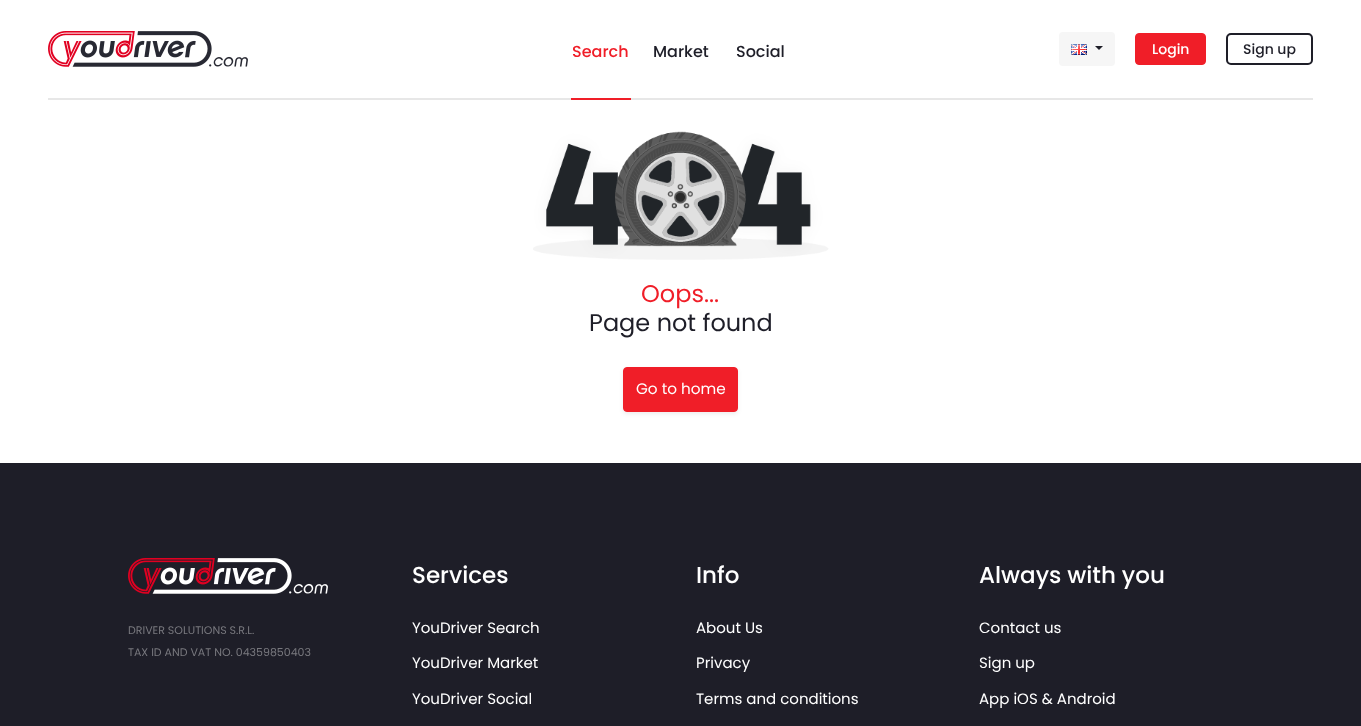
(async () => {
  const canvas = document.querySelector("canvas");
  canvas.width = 1361;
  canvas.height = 726;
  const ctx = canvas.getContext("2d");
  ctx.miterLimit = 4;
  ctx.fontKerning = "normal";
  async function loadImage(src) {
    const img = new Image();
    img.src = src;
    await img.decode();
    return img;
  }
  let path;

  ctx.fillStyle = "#ffffff";
  ctx.fillRect(0, 0, 1361, 726);
  ctx.fillStyle = "#e7e7e7";
  ctx.fillRect(48, 98, 1265, 2);
  ctx.drawImage(await loadImage("img/1.png"), 48, 31, 200, 36);
  ctx.fillStyle = "#f01e28";
  ctx.fillRect(571, 98, 60, 2);
  ctx.fillStyle = "#f6f6f6";
  ctx.beginPath();
  ctx.roundRect(1059, 32, 56, 34, 4);
  ctx.fill();
  ctx.drawImage(await loadImage("img/2.png"), 1071, 44, 16, 11);
  ctx.fillStyle = "#1e1e28";
  path = new Path2D("M1095 46H1103L1099 50Z");
  ctx.fill(path);
  ctx.fillStyle = "#f01e28";
  ctx.beginPath();
  ctx.roundRect(1135.5, 33.5, 70, 31, 3.5);
  ctx.fill();
  ctx.strokeStyle = "#f01e28";
  ctx.stroke();
  ctx.beginPath();
  ctx.roundRect(1227, 34, 85, 30, 4);
  ctx.strokeStyle = "#1e1e28";
  ctx.lineWidth = 2;
  ctx.stroke();
  ctx.drawImage(await loadImage("img/3.png"), 533, 131, 296, 129);
  ctx.fillStyle = "rgba(0, 0, 0, 0.07)";
  ctx.filter = "blur(2px)";
  ctx.beginPath();
  ctx.roundRect(623, 369, 115, 45, 4);
  ctx.fill();
  ctx.filter = "none";
  ctx.fillStyle = "#f01e28";
  ctx.beginPath();
  ctx.roundRect(623.5, 367.5, 114, 44, 3.5);
  ctx.fill();
  ctx.strokeStyle = "#f01e28";
  ctx.lineWidth = 1;
  ctx.stroke();
  ctx.fillStyle = "#1e1e28";
  ctx.fillRect(0, 463, 1361, 263);
  ctx.drawImage(await loadImage("img/4.png"), 128, 558, 200, 36);
  ctx.font = "500 16px Poppins";
  ctx.fillStyle = "#f01e28";
  ctx.fillText("Search", 572, 57);
  ctx.fillStyle = "#1e1e28";
  ctx.fillText("Market", 653, 57);
  ctx.fillText("Social", 736, 57);
  ctx.font = "500 14px Poppins";
  ctx.fillStyle = "#ffffff";
  ctx.fillText("Login", 1152, 54);
  ctx.fillStyle = "#1e1e28";
  ctx.fillText("Sign up", 1243, 54);
  ctx.font = "24px Poppins";
  ctx.fillStyle = "#f01e28";
  ctx.fillText("Oops...", 641, 302);
  ctx.fillStyle = "#1e1e28";
  ctx.fillText("Page not found", 589, 331);
  ctx.font = "15.25px Poppins";
  ctx.fillStyle = "#ffffff";
  ctx.fillText("Go to home", 636, 394);
  ctx.font = "11px Poppins";
  ctx.fillStyle = "#78787e";
  ctx.fillText("DRIVER SOLUTIONS S.R.L.", 128, 634);
  ctx.fillText("TAX ID AND VAT NO. 04359850403", 128, 656);
  ctx.font = "500 23px Poppins";
  ctx.fillStyle = "#ffffff";
  ctx.fillText("Services", 412, 583);
  ctx.font = "15px Poppins";
  for (const [text, x, y] of [
    ["YouDriver Search", 412, 633],
    ["YouDriver Market", 412, 668],
    ["YouDriver Social", 412, 704],
  ]) {
    ctx.fillText(text, x, y);
  }
  ctx.font = "500 23px Poppins";
  ctx.fillText("Info", 696, 583);
  ctx.font = "15px Poppins";
  for (const [text, x, y] of [
    ["About Us", 696, 633],
    ["Privacy", 696, 668],
    ["Terms and conditions", 696, 704],
  ]) {
    ctx.fillText(text, x, y);
  }
  ctx.font = "500 23px Poppins";
  ctx.fillText("Always with you", 979, 583);
  ctx.font = "15px Poppins";
  for (const [text, x, y] of [
    ["Contact us", 979, 633],
    ["Sign up", 979, 668],
    ["App iOS & Android", 979, 704],
  ]) {
    ctx.fillText(text, x, y);
  }
})();
